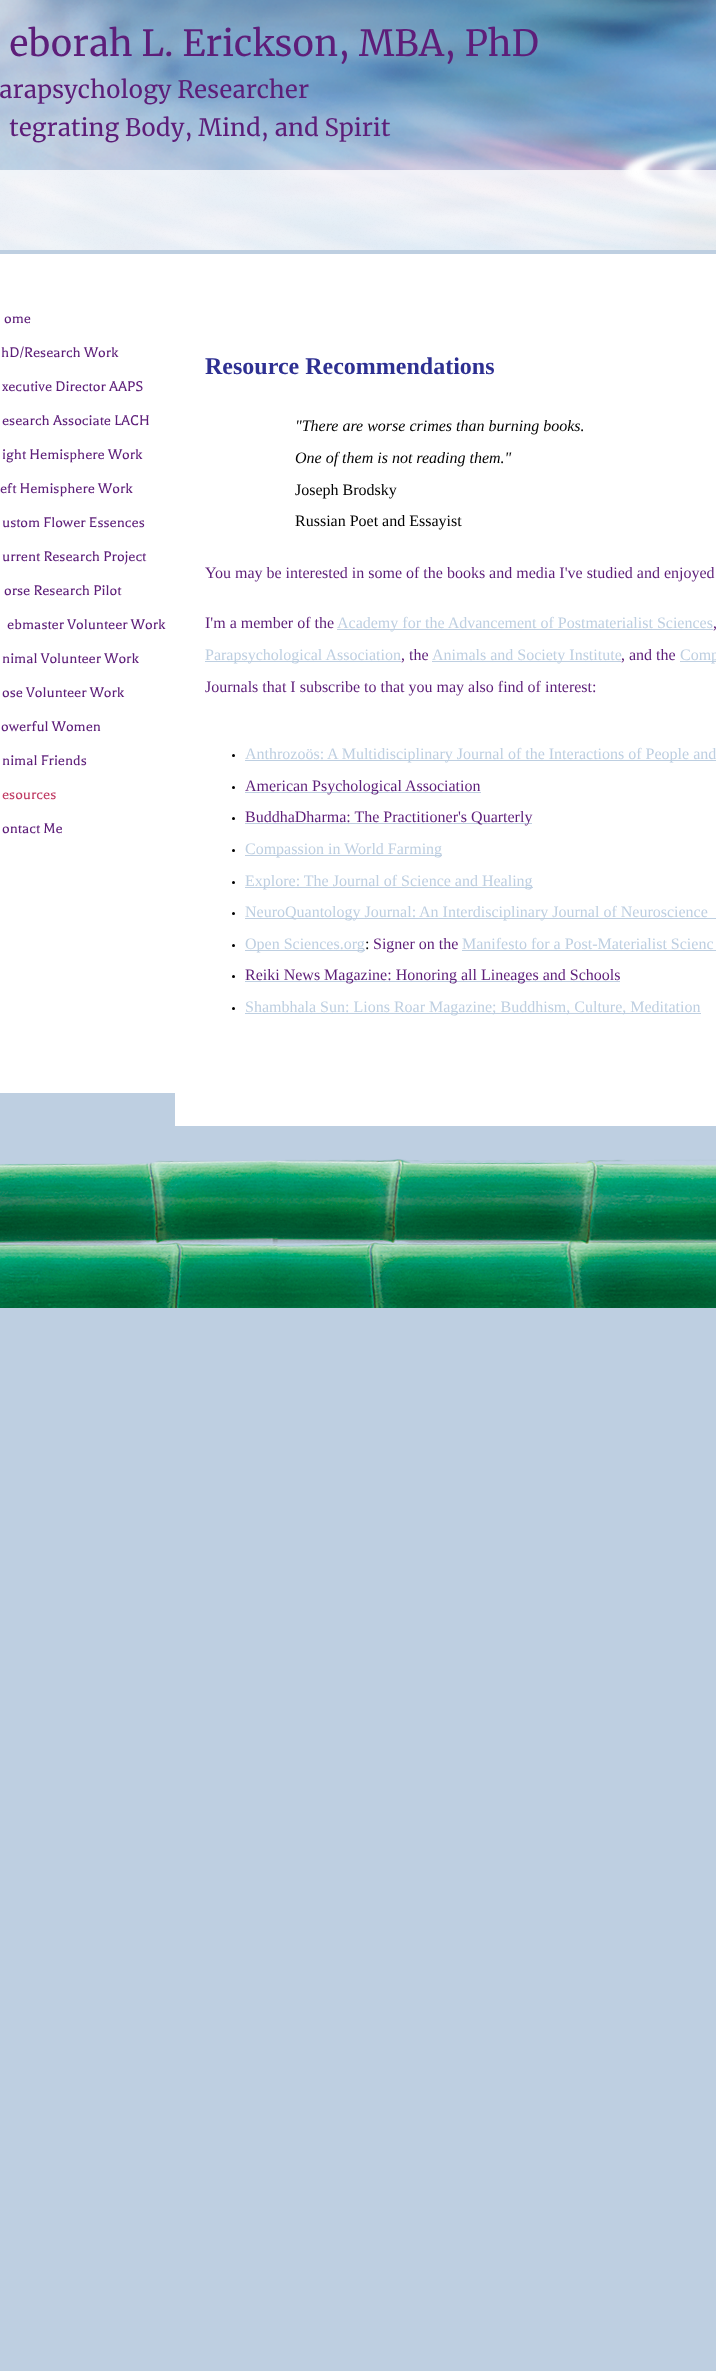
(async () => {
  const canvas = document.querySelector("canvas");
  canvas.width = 716;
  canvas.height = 2371;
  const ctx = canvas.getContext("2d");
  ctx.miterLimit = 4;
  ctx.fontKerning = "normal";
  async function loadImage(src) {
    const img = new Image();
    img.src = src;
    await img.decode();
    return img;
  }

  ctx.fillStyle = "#becfe1";
  ctx.fillRect(0, 0, 716, 2371);
  ctx.drawImage(await loadImage("img/1.png"), 0, 0, 716, 250);
  ctx.drawImage(await loadImage("img/2.png"), 0, 170, 716, 80);
  ctx.drawImage(await loadImage("img/3.png"), 0, 170, 716, 80);
  for (const [x, y, w, h, color] of [
    [0, 254, 175, 839, "#ffffff"],
    [175, 254, 541, 872, "#ffffff"],
    [337, 629, 376, 1, "#becfe1"],
    [205, 661, 196, 1, "#becfe1"],
    [432, 661, 189, 1, "#becfe1"],
    [680, 661, 36, 1, "#becfe1"],
  ]) {
    ctx.fillStyle = color;
    ctx.fillRect(x, y, w, h);
  }
  ctx.fillStyle = "#000000";
  ctx.beginPath();
  ctx.arc(233.5, 755.5, 1.5, 0, Math.PI * 2);
  ctx.fill();
  ctx.fillStyle = "#becfe1";
  ctx.fillRect(245, 760, 471, 1);
  ctx.fillStyle = "#000000";
  ctx.beginPath();
  ctx.arc(233.5, 787.5, 1.5, 0, Math.PI * 2);
  ctx.fill();
  ctx.fillStyle = "#becfe1";
  ctx.fillRect(245, 792, 236, 1);
  ctx.fillStyle = "#000000";
  ctx.beginPath();
  ctx.arc(233.5, 818.5, 1.5, 0, Math.PI * 2);
  ctx.fill();
  ctx.fillStyle = "#becfe1";
  ctx.fillRect(245, 823, 287, 1);
  ctx.fillStyle = "#000000";
  ctx.beginPath();
  ctx.arc(233.5, 850.5, 1.5, 0, Math.PI * 2);
  ctx.fill();
  ctx.fillStyle = "#becfe1";
  ctx.fillRect(245, 855, 197, 1);
  ctx.fillStyle = "#000000";
  ctx.beginPath();
  ctx.arc(233.5, 882.5, 1.5, 0, Math.PI * 2);
  ctx.fill();
  ctx.fillStyle = "#becfe1";
  ctx.fillRect(245, 887, 288, 1);
  ctx.fillStyle = "#000000";
  ctx.beginPath();
  ctx.arc(233.5, 913.5, 1.5, 0, Math.PI * 2);
  ctx.fill();
  ctx.fillStyle = "#becfe1";
  ctx.fillRect(245, 918, 471, 1);
  ctx.fillStyle = "#000000";
  ctx.beginPath();
  ctx.arc(233.5, 945.5, 1.5, 0, Math.PI * 2);
  ctx.fill();
  ctx.fillStyle = "#becfe1";
  ctx.fillRect(245, 950, 120, 1);
  ctx.fillRect(462, 950, 254, 1);
  ctx.fillStyle = "#000000";
  ctx.beginPath();
  ctx.arc(233.5, 976.5, 1.5, 0, Math.PI * 2);
  ctx.fill();
  ctx.fillStyle = "#becfe1";
  ctx.fillRect(245, 981, 375, 1);
  ctx.fillStyle = "#000000";
  ctx.beginPath();
  ctx.arc(233.5, 1008.5, 1.5, 0, Math.PI * 2);
  ctx.fill();
  ctx.fillStyle = "#becfe1";
  ctx.fillRect(245, 1013, 456, 1);
  ctx.drawImage(await loadImage("img/4.png"), 0, 1159, 716, 149);
  ctx.font = "36px Merriweather";
  ctx.fillStyle = "#5d1e79";
  ctx.fillText("eborah L. Erickson, MBA, PhD", 9, 56);
  ctx.font = "24px Merriweather";
  ctx.fillText("arapsychology Researcher", -1, 98);
  ctx.fillText("tegrating Body, Mind, and Spirit", 9, 136);
  ctx.font = "16px Balthazar";
  for (const [text, x, y] of [
    ["ome", 4, 323],
    ["hD/Research Work", 1, 357],
    ["xecutive Director AAPS", 2, 391],
    ["esearch Associate LACH", 2, 425],
    ["ight Hemisphere Work", 2, 459],
    ["eft Hemisphere Work", 0, 493],
    ["ustom Flower Essences", 2, 527],
    ["urrent Research Project", 2, 561],
    ["orse Research Pilot", 4, 595],
    ["ebmaster Volunteer Work", 7, 629],
    ["nimal Volunteer Work", 2, 663],
    ["ose Volunteer Work", 2, 697],
    ["owerful Women", 1, 731],
    ["nimal Friends", 2, 765],
  ]) {
    ctx.fillText(text, x, y);
  }
  ctx.fillStyle = "#c03a63";
  ctx.fillText("esources", 2, 799);
  ctx.fillStyle = "#5d1e79";
  ctx.fillText("ontact Me", 2, 833);
  ctx.font = "bold 24px Liberation Serif";
  ctx.fillStyle = "#2e3092";
  ctx.fillText("Resource Recommendations", 205, 374);
  ctx.font = "italic 16px Liberation Serif";
  ctx.fillStyle = "#000000";
  ctx.fillText("\"There are worse crimes than burning books.", 295, 431);
  ctx.fillText("One of them is not reading them.\"", 295, 463);
  ctx.font = "16px Liberation Serif";
  ctx.fillText("Joseph Brodsky", 295, 495);
  ctx.fillText("Russian Poet and Essayist", 295, 526);
  ctx.fillStyle = "#5d1e79";
  ctx.fillText("You may be interested in some of the books and media I've studied and enjoyed", 205, 578);
  ctx.fillText("I'm a member of the", 205, 628);
  ctx.fillStyle = "#becfe1";
  ctx.fillText("Academy for the Advancement of Postmaterialist Sciences", 337, 628);
  ctx.fillStyle = "#5d1e79";
  ctx.fillText(",", 713, 628);
  ctx.fillStyle = "#becfe1";
  ctx.fillText("Parapsychological Association", 205, 660);
  ctx.fillStyle = "#5d1e79";
  ctx.fillText(", the", 401, 660);
  ctx.fillStyle = "#becfe1";
  ctx.fillText("Animals and Society Institute", 432, 660);
  ctx.fillStyle = "#5d1e79";
  ctx.fillText(", and the", 621, 660);
  ctx.fillStyle = "#becfe1";
  ctx.fillText("Comp", 680, 660);
  ctx.fillStyle = "#5d1e79";
  ctx.fillText("Journals that I subscribe to that you may also find of interest:", 205, 692);
  ctx.fillStyle = "#becfe1";
  ctx.fillText("Anthrozoös:", 245, 759);
  ctx.fillText("A Multidisciplinary Journal of the Interactions of People and", 327, 759);
  ctx.fillStyle = "#5d1e79";
  ctx.fillText("American Psychological Association", 245, 791);
  ctx.fillText("BuddhaDharma: The Practitioner's Quarterly", 245, 822);
  ctx.fillStyle = "#becfe1";
  for (const [text, x, y] of [
    ["Compassion in World Farming", 245, 854],
    ["Explore: The Journal of Science and Healing", 245, 886],
    ["NeuroQuantology Journal:", 245, 917],
    ["An Interdisciplinary Journal of Neuroscience", 419, 917],
    ["Open Sciences.org", 245, 949],
  ]) {
    ctx.fillText(text, x, y);
  }
  ctx.fillStyle = "#000000";
  ctx.fillText(":", 365, 949);
  ctx.fillStyle = "#5d1e79";
  ctx.fillText("Signer on the", 373, 949);
  ctx.fillStyle = "#becfe1";
  ctx.fillText("Manifesto for a Post-Materialist Scienc", 462, 949);
  ctx.fillStyle = "#5d1e79";
  ctx.fillText("Reiki News Magazine: Honoring all Lineages and Schools", 245, 980);
  ctx.fillStyle = "#becfe1";
  ctx.fillText("Shambhala Sun: Lions Roar Magazine; Buddhism, Culture, Meditation", 245, 1012);
})();
